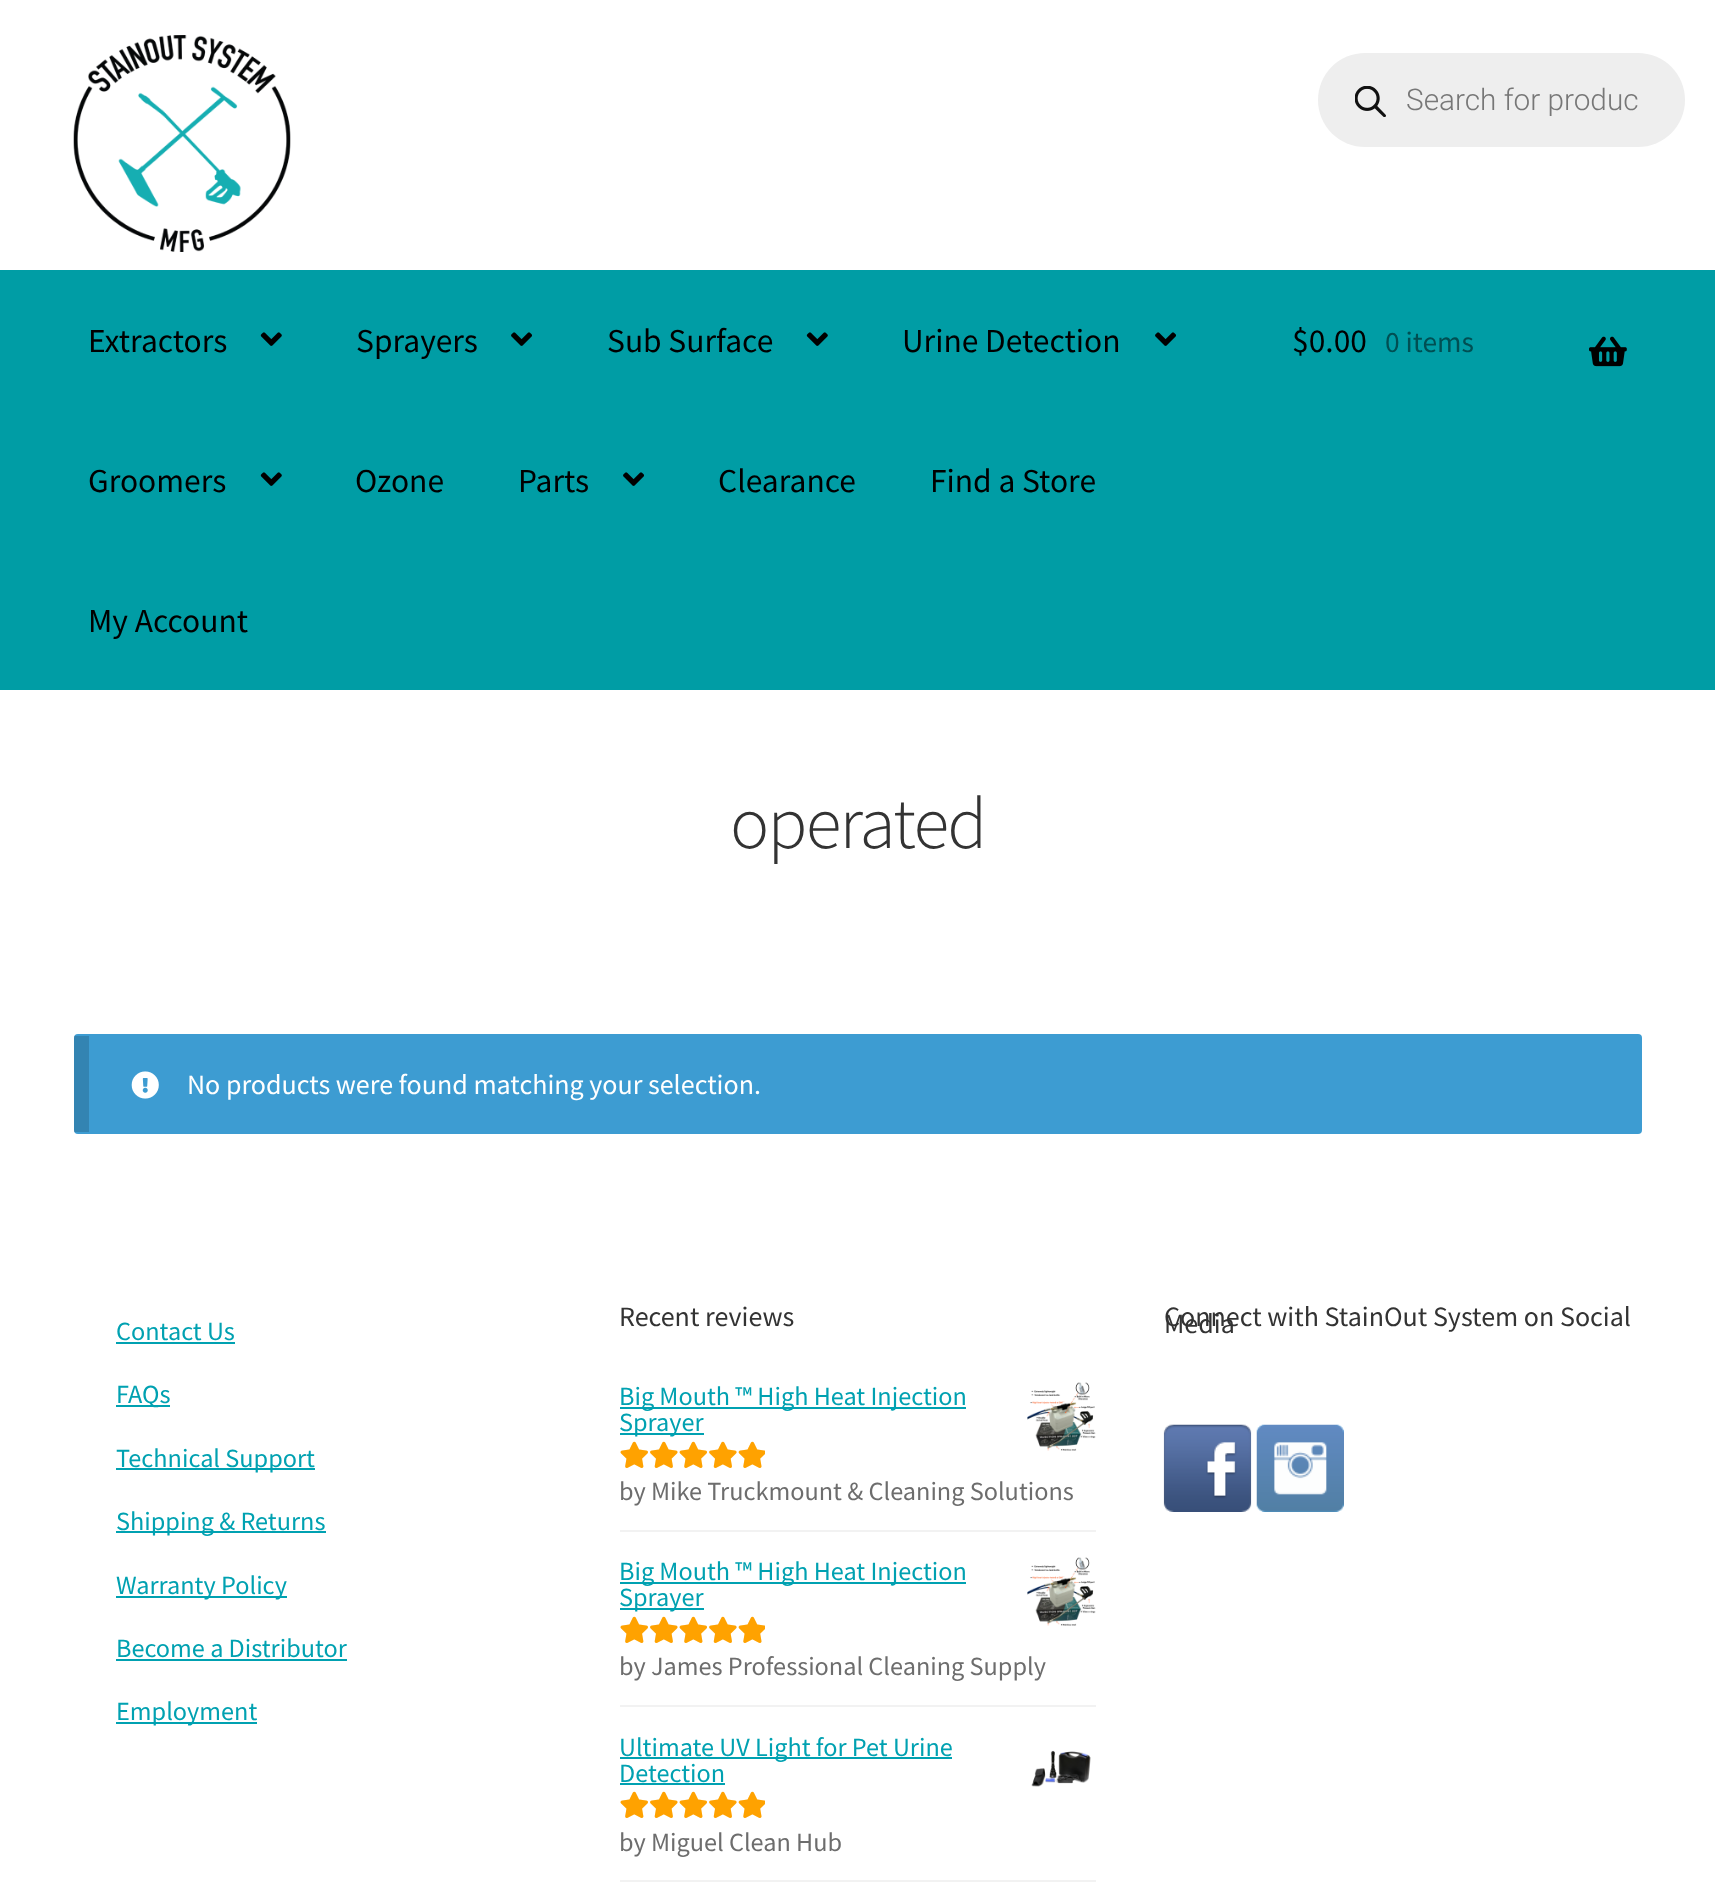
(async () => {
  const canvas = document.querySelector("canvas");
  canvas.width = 1715;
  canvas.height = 1900;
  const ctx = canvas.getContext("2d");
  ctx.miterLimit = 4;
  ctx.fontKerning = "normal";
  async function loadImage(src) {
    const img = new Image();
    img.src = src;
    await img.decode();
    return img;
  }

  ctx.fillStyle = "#ffffff";
  ctx.fillRect(0, 0, 1715, 1900);
  ctx.drawImage(await loadImage("img/1.png"), 73, 35, 218, 217);
  ctx.fillStyle = "#eeeeee";
  ctx.beginPath();
  ctx.roundRect(1318, 53, 367, 94, 47);
  ctx.fill();
  ctx.drawImage(await loadImage("img/2.png"), 1355, 86, 31, 31);
  ctx.fillStyle = "#009da5";
  ctx.fillRect(0, 270, 1715, 420);
  ctx.drawImage(await loadImage("img/3.png"), 260, 332, 22, 14);
  ctx.drawImage(await loadImage("img/4.png"), 511, 332, 21, 14);
  ctx.drawImage(await loadImage("img/3.png"), 806, 332, 22, 14);
  ctx.drawImage(await loadImage("img/4.png"), 1155, 332, 21, 14);
  ctx.drawImage(await loadImage("img/3.png"), 260, 472, 22, 14);
  ctx.drawImage(await loadImage("img/4.png"), 623, 472, 21, 14);
  ctx.drawImage(await loadImage("img/5.png"), 1589, 336, 38, 31);
  ctx.fillStyle = "#3d9cd2";
  ctx.beginPath();
  ctx.roundRect(74, 1034, 1568, 100, 4);
  ctx.fill();
  ctx.fillStyle = "rgba(0, 0, 0, 0.15)";
  ctx.fillRect(74, 1036, 15, 96);
  ctx.drawImage(await loadImage("img/6.png"), 131, 1071, 28, 28);
  for (const [x, y, w, h, color] of [
    [116, 1342, 119, 2, "#00a1b1"],
    [116, 1405, 54, 2, "#00a1b1"],
    [116, 1468, 199, 2, "#00a1b1"],
    [116, 1531, 210, 2, "#00a1b1"],
    [116, 1596, 171, 2, "#00a1b1"],
    [116, 1659, 231, 2, "#00a1b1"],
    [116, 1722, 141, 2, "#00a1b1"],
    [620, 1530, 476, 2, "#f2f2f2"],
    [620, 1407, 346, 2, "#00a1b1"],
  ]) {
    ctx.fillStyle = color;
    ctx.fillRect(x, y, w, h);
  }
  ctx.drawImage(await loadImage("img/7.png"), 1027, 1382, 69, 69);
  ctx.fillRect(620, 1433, 84, 2);
  ctx.drawImage(await loadImage("img/8.png"), 620, 1441, 145, 27);
  ctx.drawImage(await loadImage("img/9.png"), 620, 1441, 145, 27);
  ctx.fillStyle = "#f2f2f2";
  ctx.fillRect(620, 1705, 476, 2);
  ctx.fillStyle = "#00a1b1";
  ctx.fillRect(620, 1582, 346, 2);
  ctx.drawImage(await loadImage("img/7.png"), 1027, 1557, 69, 69);
  ctx.fillRect(620, 1608, 84, 2);
  ctx.drawImage(await loadImage("img/8.png"), 620, 1616, 145, 27);
  ctx.drawImage(await loadImage("img/9.png"), 620, 1616, 145, 27);
  ctx.fillStyle = "#f2f2f2";
  ctx.fillRect(620, 1880, 476, 2);
  ctx.fillStyle = "#00a1b1";
  ctx.fillRect(620, 1757, 332, 2);
  ctx.drawImage(await loadImage("img/10.png"), 1031, 1750, 60, 37);
  ctx.fillRect(620, 1783, 105, 2);
  ctx.drawImage(await loadImage("img/8.png"), 620, 1791, 145, 27);
  ctx.drawImage(await loadImage("img/9.png"), 620, 1791, 145, 27);
  ctx.drawImage(await loadImage("img/11.png"), 1163, 1424, 89, 88);
  ctx.drawImage(await loadImage("img/12.png"), 1256, 1424, 88, 88);
  ctx.font = "300 29.75px Roboto";
  ctx.fillStyle = "#777777";
  ctx.fillText("Search for produc", 1406, 110);
  ctx.font = "33.5px Source Sans Pro";
  ctx.fillStyle = "#000000";
  for (const [text, x, y] of [
    ["Extractors", 88, 352],
    ["Sprayers", 356, 352],
    ["Sub Surface", 607, 352],
    ["Urine Detection", 902, 352],
    ["Groomers", 88, 492],
    ["Ozone", 355, 492],
    ["Parts", 518, 492],
    ["Clearance", 718, 492],
    ["Find a Store", 930, 492],
    ["My Account", 88, 632],
    ["$0.00", 1292, 352],
  ]) {
    ctx.fillText(text, x, y);
  }
  ctx.font = "29.5px Source Sans Pro";
  ctx.fillStyle = "#004f53";
  ctx.fillText("0 items", 1385, 352);
  ctx.letterSpacing = "-1.75px";
  ctx.font = "300 73.5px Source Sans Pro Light";
  ctx.fillStyle = "#333333";
  ctx.fillText("operated", 730, 848);
  ctx.letterSpacing = "0px";
  ctx.font = "28px Source Sans Pro";
  ctx.fillStyle = "#ffffff";
  ctx.fillText("No products were found matching your selection.", 187, 1094);
  ctx.font = "26.25px Source Sans Pro";
  ctx.fillStyle = "#00a1b1";
  for (const [text, x, y] of [
    ["Contact Us", 116, 1340],
    ["FAQs", 116, 1403],
    ["Technical Support", 116, 1467],
    ["Shipping & Returns", 116, 1530],
    ["Warranty Policy", 116, 1594],
    ["Become a Distributor", 116, 1657],
    ["Employment", 116, 1720],
  ]) {
    ctx.fillText(text, x, y);
  }
  ctx.font = "28px Source Sans Pro";
  ctx.fillStyle = "#333333";
  ctx.fillText("Recent reviews", 619, 1326);
  ctx.font = "26.25px Source Sans Pro";
  ctx.fillStyle = "#00a1b1";
  ctx.fillText("Big Mouth ™ High Heat Injection", 619, 1405);
  ctx.fillText("Sprayer", 619, 1431);
  ctx.fillStyle = "#6d6d6d";
  ctx.fillText("by Mike Truckmount & Cleaning Solutions", 619, 1500);
  ctx.fillStyle = "#00a1b1";
  ctx.fillText("Big Mouth ™ High Heat Injection", 619, 1580);
  ctx.fillText("Sprayer", 619, 1606);
  ctx.fillStyle = "#6d6d6d";
  ctx.fillText("by James Professional Cleaning Supply", 619, 1675);
  ctx.fillStyle = "#00a1b1";
  ctx.fillText("Ultimate UV Light for Pet Urine", 619, 1756);
  ctx.fillText("Detection", 619, 1782);
  ctx.fillStyle = "#6d6d6d";
  ctx.fillText("by Miguel Clean Hub", 619, 1851);
  ctx.font = "28px Source Sans Pro";
  ctx.fillStyle = "#333333";
  ctx.fillText("Connect with StainOut System on Social", 1164, 1326);
  ctx.fillText("Media", 1164, 1333);
})();
